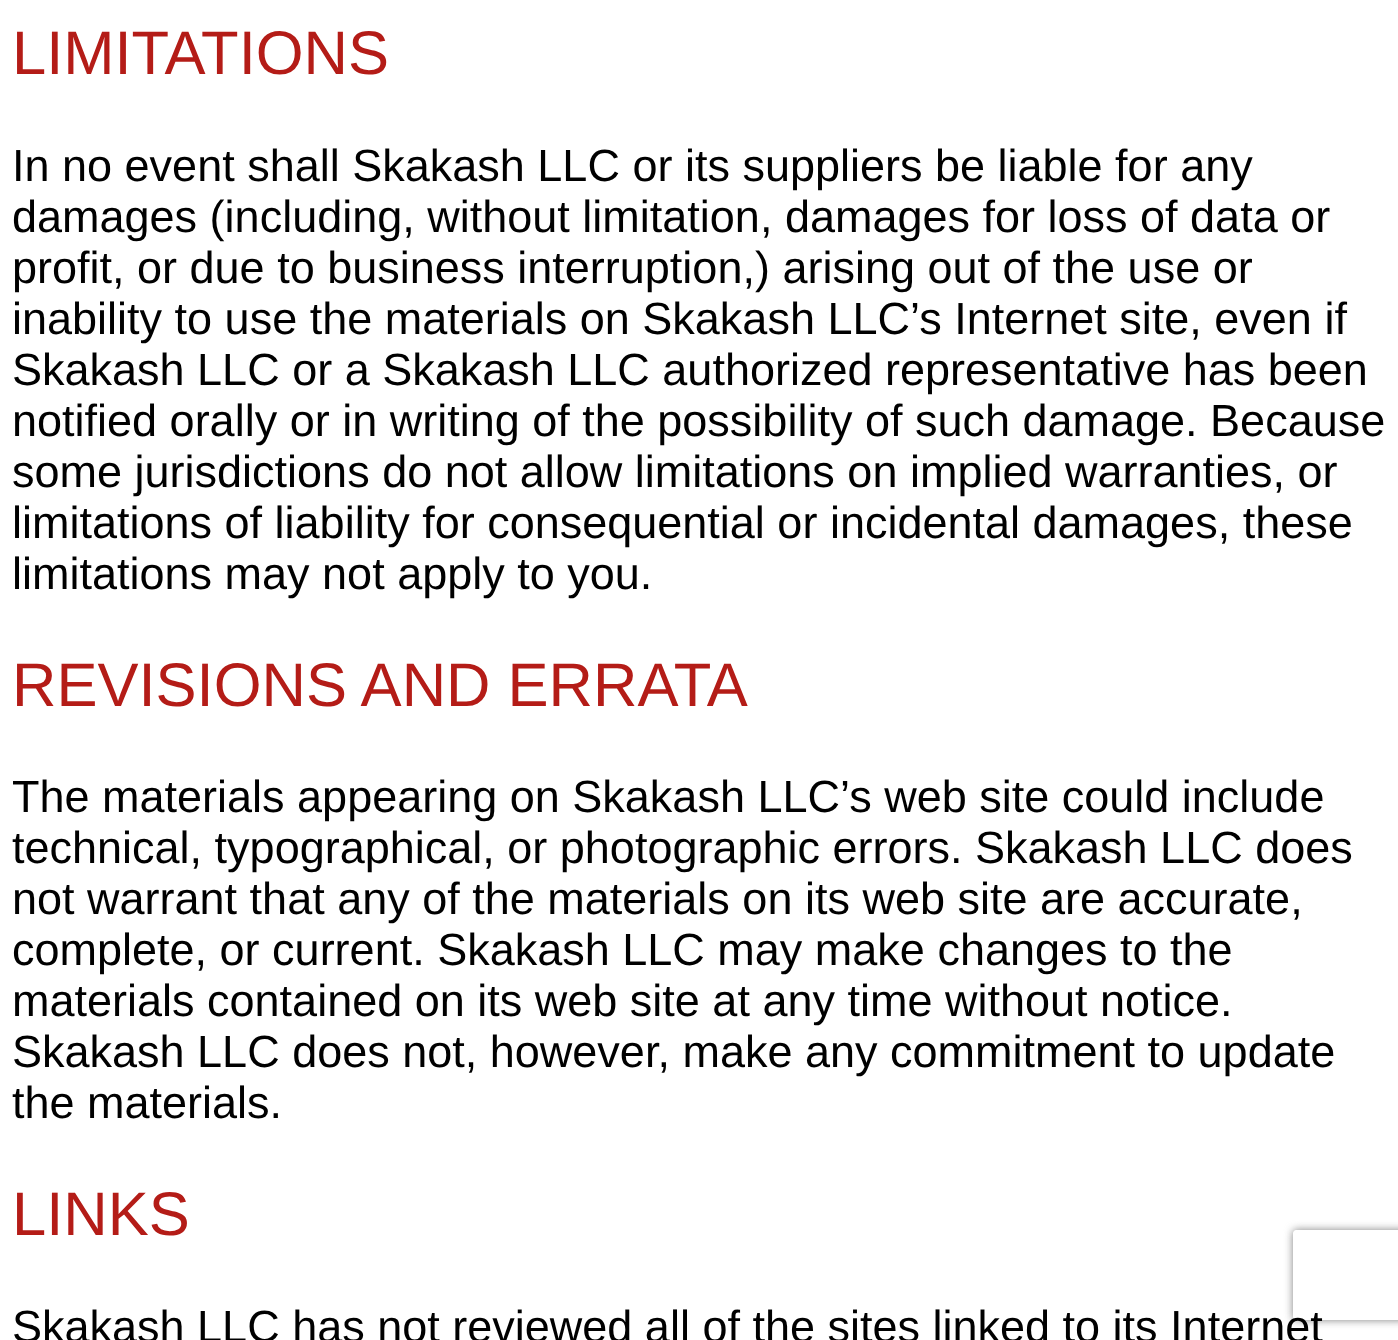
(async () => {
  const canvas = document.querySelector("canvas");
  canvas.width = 1398;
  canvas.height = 1340;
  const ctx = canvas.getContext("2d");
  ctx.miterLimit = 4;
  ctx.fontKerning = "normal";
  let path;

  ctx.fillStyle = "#ffffff";
  ctx.fillRect(0, 0, 1398, 1340);
  ctx.save();
  path = new Path2D("M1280 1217H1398V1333H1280ZM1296 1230H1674C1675.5 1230 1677 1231.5 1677 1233V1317C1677 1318.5 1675.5 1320 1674 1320H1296C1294.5 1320 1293 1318.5 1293 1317V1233C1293 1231.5 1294.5 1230 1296 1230Z");
  ctx.clip(path, "evenodd");
  ctx.fillStyle = "#808080";
  ctx.filter = "blur(4px)";
  ctx.beginPath();
  ctx.roundRect(1293, 1230, 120, 90, 3);
  ctx.fill();
  ctx.filter = "none";
  ctx.restore();
  ctx.font = "61.5px Liberation Sans";
  ctx.fillStyle = "#b41c17";
  ctx.fillText("LIMITATIONS", 12, 74);
  ctx.font = "45px Liberation Sans";
  ctx.fillStyle = "#000000";
  for (const [text, x, y] of [
    ["In no event shall Skakash LLC or its suppliers be liable for any", 12, 181],
    ["damages (including, without limitation, damages for loss of data or", 12, 232],
    ["profit, or due to business interruption,) arising out of the use or", 12, 283],
    ["inability to use the materials on Skakash LLC’s Internet site, even if", 12, 334],
    ["Skakash LLC or a Skakash LLC authorized representative has been", 12, 385],
    ["notified orally or in writing of the possibility of such damage. Because", 12, 436],
    ["some jurisdictions do not allow limitations on implied warranties, or", 12, 487],
    ["limitations of liability for consequential or incidental damages, these", 12, 538],
    ["limitations may not apply to you.", 12, 589],
  ]) {
    ctx.fillText(text, x, y);
  }
  ctx.font = "61.5px Liberation Sans";
  ctx.fillStyle = "#b41c17";
  ctx.fillText("REVISIONS AND ERRATA", 12, 706);
  ctx.font = "45px Liberation Sans";
  ctx.fillStyle = "#000000";
  for (const [text, x, y] of [
    ["The materials appearing on Skakash LLC’s web site could include", 12, 812],
    ["technical, typographical, or photographic errors. Skakash LLC does", 12, 863],
    ["not warrant that any of the materials on its web site are accurate,", 12, 914],
    ["complete, or current. Skakash LLC may make changes to the", 12, 965],
    ["materials contained on its web site at any time without notice.", 12, 1016],
    ["Skakash LLC does not, however, make any commitment to update", 12, 1067],
    ["the materials.", 12, 1118],
  ]) {
    ctx.fillText(text, x, y);
  }
  ctx.font = "61.5px Liberation Sans";
  ctx.fillStyle = "#b41c17";
  ctx.fillText("LINKS", 12, 1235);
  ctx.font = "45px Liberation Sans";
  ctx.fillStyle = "#000000";
  ctx.fillText("Skakash LLC has not reviewed all of the sites linked to its Internet", 12, 1342);
})();
